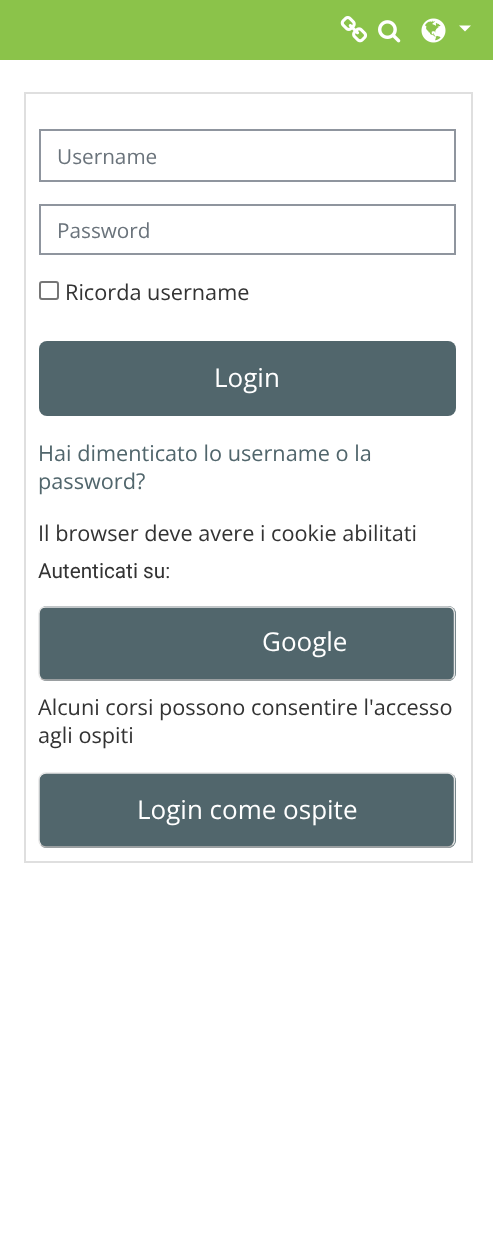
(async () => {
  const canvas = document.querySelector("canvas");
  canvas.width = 493;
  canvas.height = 1255;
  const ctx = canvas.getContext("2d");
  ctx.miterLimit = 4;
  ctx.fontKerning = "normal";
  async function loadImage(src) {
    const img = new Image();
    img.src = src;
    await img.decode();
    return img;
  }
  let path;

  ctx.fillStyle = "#ffffff";
  ctx.fillRect(0, 0, 493, 1255);
  ctx.fillStyle = "#8bc34a";
  ctx.fillRect(0, 0, 493, 60);
  ctx.drawImage(await loadImage("img/1.png"), 340, 16, 28, 27);
  ctx.drawImage(await loadImage("img/2.png"), 378, 20, 23, 23);
  ctx.drawImage(await loadImage("img/3.png"), 421, 18, 25, 25);
  ctx.fillStyle = "#ffffff";
  path = new Path2D("M459 25.5H471L465 31.5Z");
  ctx.fill(path);
  ctx.strokeStyle = "#dfdfdf";
  ctx.lineWidth = 2;
  ctx.strokeRect(25, 93, 447, 769);
  ctx.strokeStyle = "#8f959e";
  ctx.strokeRect(40, 130, 415, 51);
  ctx.strokeRect(40, 205, 415, 49);
  ctx.beginPath();
  ctx.roundRect(40, 282, 18, 17, 2);
  ctx.strokeStyle = "#767676";
  ctx.stroke();
  ctx.fillStyle = "#51666c";
  ctx.beginPath();
  ctx.roundRect(39, 341, 417, 75, 8);
  ctx.fill();
  ctx.beginPath();
  ctx.roundRect(39, 606, 417, 75, 8);
  ctx.fill();
  path = new Path2D("M452.5 678.5C451.5 679.5 449.5 680 448 680H46C44 680 42 679.5 41 678.5");
  ctx.strokeStyle = "#b3b3b3";
  ctx.lineWidth = 1.5;
  ctx.stroke(path);
  path = new Path2D("M41 678.5C39.5 677 39 675.5 39 673.5V613.5C39 611.5 39.5 610 41 608.5C42 607.5 44 607 46 607H448C449.5 607 451.5 607.5 452.5 608.5C454 610 454.5 611.5 454.5 613.5V673.5C454.5 675.5 454 677 452.5 678.5");
  ctx.strokeStyle = "#e6e6e6";
  ctx.stroke(path);
  ctx.beginPath();
  ctx.roundRect(39, 773, 417, 75, 8);
  ctx.fill();
  path = new Path2D("M452.5 845C451.5 846 449.5 847 448 847H46C44 847 42 846 41 845");
  ctx.strokeStyle = "#b3b3b3";
  ctx.stroke(path);
  path = new Path2D("M41 845C39.5 843.5 39 842 39 840V780C39 778 39.5 776.5 41 775C42 774 44 773 46 773H448C449.5 773 451.5 774 452.5 775C454 776.5 454.5 778 454.5 780V840C454.5 842 454 843.5 452.5 845");
  ctx.strokeStyle = "#e6e6e6";
  ctx.stroke(path);
  ctx.font = "20.75px Open Sans";
  ctx.fillStyle = "#6a737b";
  ctx.fillText("Username", 57, 164);
  ctx.fillText("Password", 57, 238);
  ctx.font = "21.7px Open Sans";
  ctx.fillStyle = "#333333";
  ctx.fillText("Ricorda username", 65, 300);
  ctx.font = "26px Open Sans";
  ctx.fillStyle = "#ffffff";
  ctx.fillText("Login", 214, 387);
  ctx.font = "21.7px Open Sans";
  ctx.fillStyle = "#51666c";
  ctx.fillText("Hai dimenticato lo username o la", 38, 461);
  ctx.fillText("password?", 38, 489);
  ctx.fillStyle = "#333333";
  ctx.fillText("Il browser deve avere i cookie abilitati", 38, 541);
  ctx.font = "20.75px Roboto";
  ctx.fillText("Autenticati su:", 38, 578);
  ctx.font = "26px Open Sans";
  ctx.fillStyle = "#ffffff";
  ctx.fillText("Google", 262, 651);
  ctx.font = "21.7px Open Sans";
  ctx.fillStyle = "#333333";
  ctx.fillText("Alcuni corsi possono consentire l'accesso", 38, 715);
  ctx.fillText("agli ospiti", 38, 743);
  ctx.font = "26px Open Sans";
  ctx.fillStyle = "#ffffff";
  ctx.fillText("Login come ospite", 137, 819);
})();
